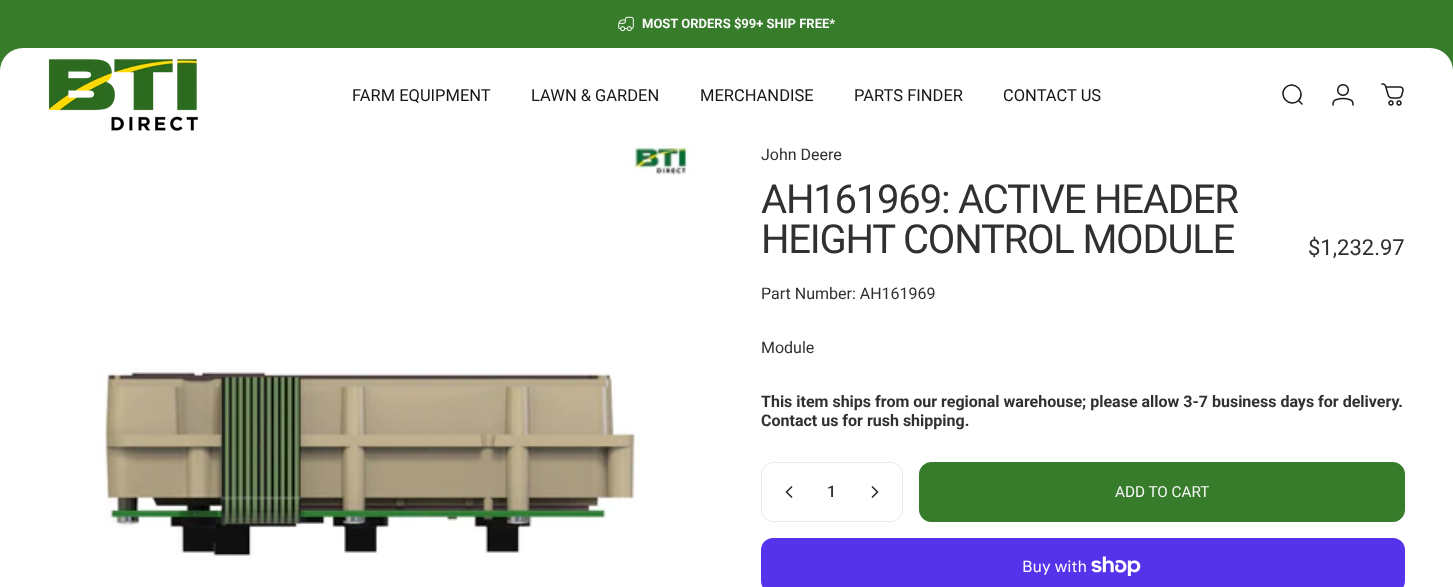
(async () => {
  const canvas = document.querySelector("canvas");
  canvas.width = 1453;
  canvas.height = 587;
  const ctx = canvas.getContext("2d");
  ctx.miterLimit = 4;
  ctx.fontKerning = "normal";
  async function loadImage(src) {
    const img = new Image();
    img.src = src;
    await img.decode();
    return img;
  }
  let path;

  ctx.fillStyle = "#ffffff";
  ctx.fillRect(0, 0, 1453, 587);
  ctx.fillStyle = "#367c2b";
  ctx.fillRect(0, 0, 1453, 71);
  ctx.drawImage(await loadImage("img/1.png"), 618, 16, 16, 16);
  ctx.fillStyle = "#ffffff";
  ctx.beginPath();
  ctx.roundRect(0, 48, 1453, 94, [23, 23, 0, 0]);
  ctx.fill();
  ctx.drawImage(await loadImage("img/2.png"), 48, 59, 150, 72);
  path = new Path2D("M1302 104L1298.5 100.5M1298.5 100.5C1306.5 92 1294 79.5 1285.5 87.5C1277.5 96 1290 108.5 1298.5 100.5Z");
  ctx.strokeStyle = "#171717";
  ctx.lineWidth = 1.5;
  ctx.lineCap = "round";
  ctx.stroke(path);
  ctx.drawImage(await loadImage("img/3.png"), 1332, 84, 22, 22);
  ctx.drawImage(await loadImage("img/4.png"), 1381, 83, 23, 23);
  ctx.drawImage(await loadImage("img/5.png"), 48, 142, 644, 445);
  ctx.beginPath();
  ctx.roundRect(761.5, 462.5, 141, 59, 11.5);
  ctx.strokeStyle = "#eaeaea";
  ctx.lineWidth = 1;
  ctx.stroke();
  path = new Path2D("M791.5 487L786.5 492L791.5 497");
  ctx.strokeStyle = "#303030";
  ctx.lineWidth = 1.7;
  ctx.lineJoin = "round";
  ctx.stroke(path);
  path = new Path2D("M872.5 487L877.5 492L872.5 497");
  ctx.stroke(path);
  ctx.fillStyle = "#367c2b";
  ctx.beginPath();
  ctx.roundRect(919.5, 462.5, 485, 59, 11.5);
  ctx.fill();
  ctx.strokeStyle = "#367c2b";
  ctx.lineWidth = 1;
  ctx.lineJoin = "miter";
  ctx.stroke();
  ctx.fillStyle = "#5433eb";
  ctx.beginPath();
  ctx.roundRect(761, 538, 644, 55, 12);
  ctx.fill();
  ctx.drawImage(await loadImage("img/6.png"), 1091, 556, 50, 20);
  ctx.font = "bold 13px Roboto";
  ctx.fillStyle = "#fafafa";
  ctx.fillText("MOST ORDERS $99+ SHIP FREE*", 642, 28);
  ctx.font = "16.5px Roboto";
  ctx.fillStyle = "#171717";
  for (const [text, x, y] of [
    ["FARM EQUIPMENT", 352, 101],
    ["LAWN & GARDEN", 531, 101],
    ["MERCHANDISE", 700, 101],
    ["PARTS FINDER", 854, 101],
    ["CONTACT US", 1003, 101],
  ]) {
    ctx.fillText(text, x, y);
  }
  ctx.font = "16px Roboto";
  ctx.fillStyle = "#303030";
  ctx.fillText("John Deere", 761, 160);
  ctx.letterSpacing = "-1.2px";
  ctx.font = "40px Roboto";
  ctx.fillText("AH161969: ACTIVE HEADER", 761, 213);
  ctx.fillText("HEIGHT CONTROL MODULE", 761, 253);
  ctx.letterSpacing = "0px";
  ctx.font = "22px Roboto";
  ctx.fillText("$1,232.97", 1308, 255);
  ctx.font = "16px Roboto";
  ctx.fillText("Part Number: AH161969", 761, 299);
  ctx.fillText("Module", 761, 353);
  ctx.font = "bold 16px Roboto";
  ctx.fillText("This item ships from our regional warehouse; please allow 3-7 business days for delivery.", 761, 407);
  ctx.fillText("Contact us for rush shipping.", 761, 426);
  ctx.font = "500 16px Roboto";
  ctx.fillText("1", 827, 497);
  ctx.font = "15.25px Roboto";
  ctx.fillStyle = "#fafafa";
  ctx.fillText("ADD TO CART", 1115, 497);
  ctx.font = "16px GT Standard";
  ctx.fillText("Buy with", 1022, 572);
})();
